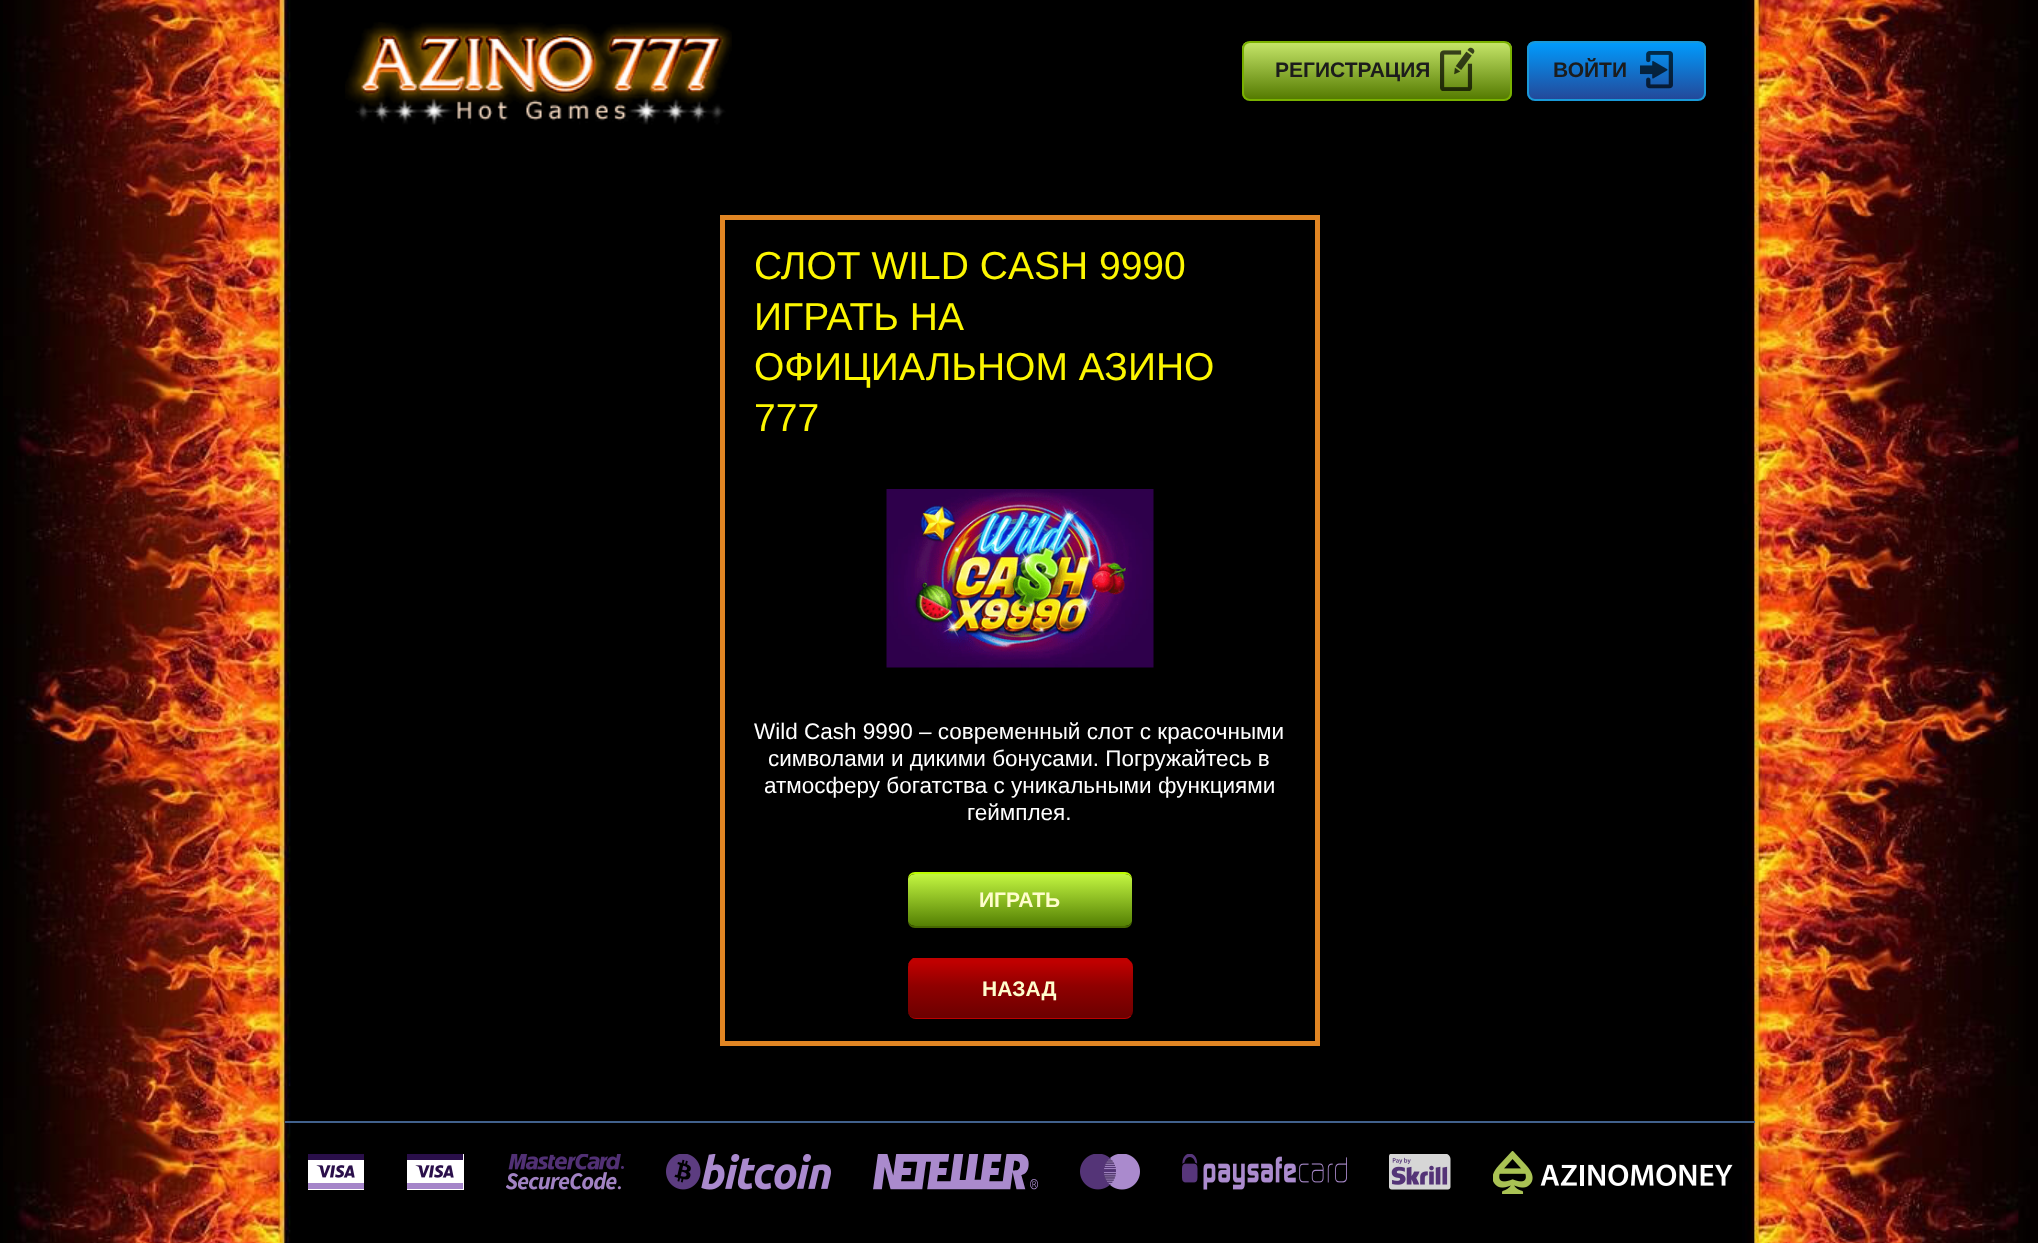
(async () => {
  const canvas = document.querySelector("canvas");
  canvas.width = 2038;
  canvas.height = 1243;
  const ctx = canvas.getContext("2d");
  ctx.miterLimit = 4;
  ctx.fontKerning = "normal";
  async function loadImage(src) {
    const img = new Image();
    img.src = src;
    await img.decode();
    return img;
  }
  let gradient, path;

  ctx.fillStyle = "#020100";
  ctx.fillRect(0, 0, 2038, 1243);
  ctx.drawImage(await loadImage("img/1.png"), 3, 0, 2035, 1243);
  ctx.drawImage(await loadImage("img/2.png"), 345, 22, 387, 103);
  ctx.save();
  ctx.beginPath();
  ctx.roundRect(1242, 41, 270, 60, 8);
  ctx.clip();
  gradient = ctx.createLinearGradient(1377, 42, 1377, 99);
  gradient.addColorStop(0, "#c6e66a");
  gradient.addColorStop(1, "#557b01");
  ctx.fillStyle = gradient;
  ctx.fillRect(1242, 42, 270, 57);
  ctx.restore();
  ctx.beginPath();
  ctx.roundRect(1243, 42, 268, 58, 7);
  ctx.strokeStyle = "#79b100";
  ctx.lineWidth = 2;
  ctx.stroke();
  ctx.drawImage(await loadImage("img/3.png"), 1440, 47, 35, 44);
  ctx.save();
  ctx.beginPath();
  ctx.roundRect(1527, 41, 179, 60, 8);
  ctx.clip();
  gradient = ctx.createLinearGradient(1616, 42, 1616, 99);
  gradient.addColorStop(0, "#009cfe");
  gradient.addColorStop(1, "#23499a");
  ctx.fillStyle = gradient;
  ctx.fillRect(1527, 42, 179, 57);
  ctx.restore();
  ctx.beginPath();
  ctx.roundRect(1528, 42, 177, 58, 7);
  ctx.strokeStyle = "#1999d9";
  ctx.stroke();
  ctx.drawImage(await loadImage("img/4.png"), 1640, 51, 33, 38);
  ctx.strokeStyle = "#e08523";
  ctx.lineWidth = 5;
  ctx.strokeRect(722.5, 217.5, 595, 826);
  ctx.drawImage(await loadImage("img/5.png"), 886, 489, 268, 179);
  gradient = ctx.createLinearGradient(1020, 875, 1020, 926);
  gradient.addColorStop(0, "#c1f440");
  gradient.addColorStop(1, "#548003");
  ctx.fillStyle = gradient;
  path = new Path2D("M915 874H1125C1129 874 1132 877 1132 879V921C1132 923 1129 926 1125 926H915C911 926 908 923 908 921V879C908 877 911 874 915 874Z");
  ctx.fill(path);
  ctx.fillStyle = "#bdfd00";
  path = new Path2D("M915 872C911 872 908 875 908 879C908 877 911 874 915 874H1125C1129 874 1132 877 1132 879C1132 875 1129 872 1125 872Z");
  ctx.fill(path);
  ctx.fillStyle = "#466701";
  path = new Path2D("M1125 928C1129 928 1132 925 1132 921C1132 923 1129 926 1125 926H915C911 926 908 923 908 921C908 925 911 928 915 928Z");
  ctx.fill(path);
  ctx.save();
  ctx.beginPath();
  ctx.roundRect(908, 959, 225, 60, 8);
  ctx.clip();
  gradient = ctx.createLinearGradient(1020, 908, 1020, 962);
  gradient.addColorStop(0, "#c00000");
  gradient.addColorStop(0.44, "#900000");
  gradient.addColorStop(1, "#6e0000");
  ctx.fillStyle = gradient;
  ctx.fillRect(908, 959, 225, 3);
  gradient = ctx.createLinearGradient(1020, 962, 1020, 1016);
  gradient.addColorStop(0, "#c00000");
  gradient.addColorStop(0.44, "#900000");
  gradient.addColorStop(1, "#6e0000");
  ctx.fillStyle = gradient;
  ctx.fillRect(908, 962, 225, 54);
  gradient = ctx.createLinearGradient(1020, 1016, 1020, 1070);
  gradient.addColorStop(0, "#c00000");
  gradient.addColorStop(0.44, "#900000");
  gradient.addColorStop(1, "#6e0000");
  ctx.fillStyle = gradient;
  ctx.fillRect(908, 1016, 225, 3);
  ctx.restore();
  ctx.fillStyle = "#c00000";
  path = new Path2D("M915 962H1125C1129 962 1132 964 1132 966C1132 963 1130 960 1127 958H913C910 960 908 963 908 966C908 964 911 962 915 962Z");
  ctx.fill(path);
  ctx.fillStyle = "#6e0000";
  path = new Path2D("M1125 1018C1129 1018 1132 1015 1132 1011C1132 1013 1129 1016 1125 1016H915C911 1016 908 1013 908 1011C908 1015 911 1018 915 1018Z");
  ctx.fill(path);
  ctx.fillStyle = "#41618c";
  ctx.fillRect(285, 1121, 1470, 2);
  ctx.drawImage(await loadImage("img/6.png"), 308, 1154, 56, 36);
  ctx.drawImage(await loadImage("img/7.png"), 407, 1154, 57, 36);
  ctx.drawImage(await loadImage("img/8.png"), 506, 1154, 118, 36);
  ctx.drawImage(await loadImage("img/9.png"), 666, 1154, 165, 36);
  ctx.drawImage(await loadImage("img/10.png"), 873, 1154, 165, 36);
  ctx.drawImage(await loadImage("img/11.png"), 1080, 1154, 60, 36);
  ctx.drawImage(await loadImage("img/12.png"), 1182, 1154, 165, 36);
  ctx.drawImage(await loadImage("img/13.png"), 1389, 1154, 62, 36);
  ctx.drawImage(await loadImage("img/14.png"), 1493, 1151, 240, 43);
  ctx.font = "bold 21px Liberation Sans";
  ctx.fillStyle = "#1c1c1c";
  ctx.fillText("РЕГИСТРАЦИЯ", 1275, 77);
  ctx.fillText("ВОЙТИ", 1553, 77);
  ctx.font = "39px Liberation Sans";
  ctx.fillStyle = "#fcf600";
  for (const [text, x, y] of [
    ["СЛОТ WILD CASH 9990", 754, 279],
    ["ИГРАТЬ НА", 754, 330],
    ["ОФИЦИАЛЬНОМ АЗИНО", 754, 380],
    ["777", 754, 431],
  ]) {
    ctx.fillText(text, x, y);
  }
  ctx.font = "22.5px Liberation Sans";
  ctx.fillStyle = "#ffffff";
  for (const [text, x, y] of [
    ["Wild Cash 9990 – современный слот с красочными", 754, 739],
    ["символами и дикими бонусами. Погружайтесь в", 768, 766],
    ["атмосферу богатства с уникальными функциями", 764, 793],
    ["геймплея.", 967, 820],
  ]) {
    ctx.fillText(text, x, y);
  }
  ctx.font = "bold 21px Liberation Sans";
  ctx.fillStyle = "#fffdcd";
  ctx.fillText("ИГРАТЬ", 979, 907);
  ctx.fillText("НАЗАД", 982, 996);
})();
